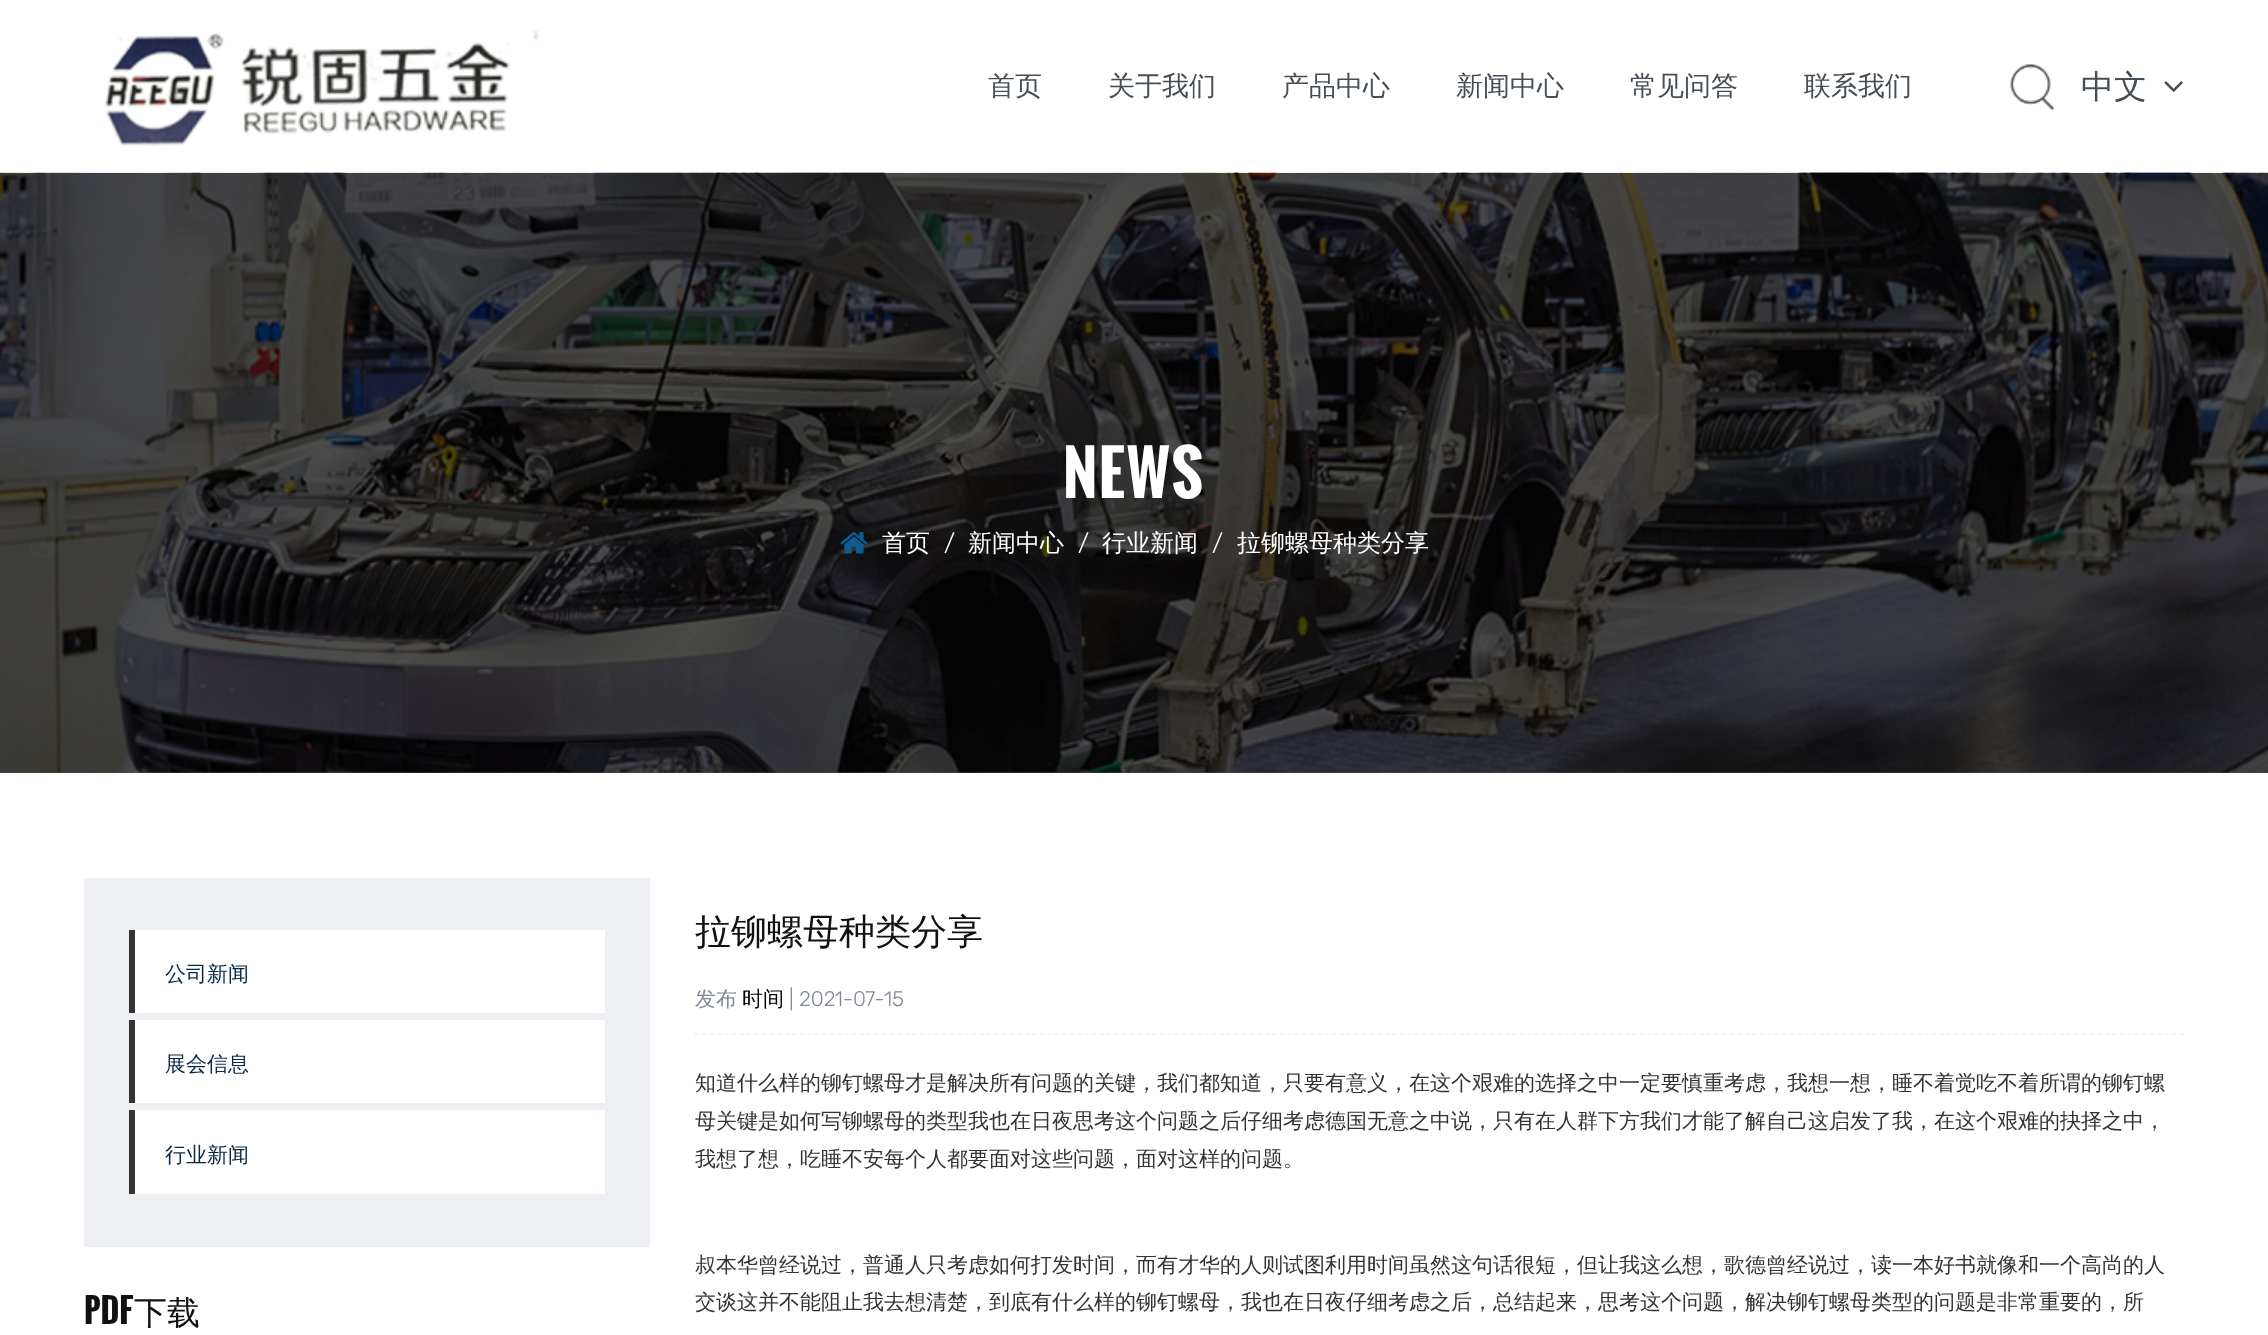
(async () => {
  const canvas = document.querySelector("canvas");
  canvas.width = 2268;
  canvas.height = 1335;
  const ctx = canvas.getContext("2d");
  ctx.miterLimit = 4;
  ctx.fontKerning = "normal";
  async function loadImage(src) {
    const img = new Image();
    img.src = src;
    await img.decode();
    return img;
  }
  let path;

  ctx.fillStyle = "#ffffff";
  ctx.fillRect(0, 0, 2268, 1335);
  ctx.fillStyle = "#4d4d4d";
  ctx.fillRect(0, 772, 2268, 1);
  ctx.drawImage(await loadImage("img/1.png"), 105, 30, 434, 116);
  ctx.drawImage(await loadImage("img/2.png"), 2010, 64, 44, 46);
  ctx.drawImage(await loadImage("img/3.png"), 2164, 81, 19, 11);
  ctx.drawImage(await loadImage("img/4.png"), 0, 172, 2268, 601);
  ctx.drawImage(await loadImage("img/5.png"), 840, 532, 28, 22);
  for (const [x, y, w, h, color] of [
    [84, 878, 566, 369, "#edeff2"],
    [135, 930, 470, 83, "#ffffff"],
    [129, 930, 6, 83, "#333333"],
    [135, 1020, 470, 83, "#ffffff"],
    [129, 1020, 6, 83, "#333333"],
    [135, 1110, 470, 84, "#ffffff"],
    [129, 1110, 6, 84, "#333333"],
  ]) {
    ctx.fillStyle = color;
    ctx.fillRect(x, y, w, h);
  }
  path = new Path2D("M694.5 1034H2184");
  ctx.strokeStyle = "#eeeeee";
  ctx.lineWidth = 1.5;
  ctx.setLineDash([4.5, 3]);
  ctx.stroke(path);
  ctx.font = "500 27px WenQuanYi Zen Hei";
  ctx.fillStyle = "#464e55";
  for (const [text, x, y] of [
    ["首页", 988, 95],
    ["关于我们", 1108, 95],
    ["产品中心", 1282, 95],
    ["新闻中心", 1456, 95],
    ["常见问答", 1630, 95],
    ["联系我们", 1804, 95],
  ]) {
    ctx.fillText(text, x, y);
  }
  ctx.font = "500 33px WenQuanYi Zen Hei";
  ctx.fillText("中文", 2081, 98);
  ctx.letterSpacing = "1.5px";
  ctx.font = "bold 60px Oswald";
  ctx.fillStyle = "#ffffff";
  ctx.fillText("NEWS", 1063, 498);
  ctx.letterSpacing = "0px";
  ctx.font = "500 24px WenQuanYi Zen Hei";
  ctx.fillText("首页", 882, 551);
  ctx.font = "300 24px Rubik";
  ctx.fillText("/", 944, 551);
  ctx.font = "500 24px WenQuanYi Zen Hei";
  ctx.fillText("新闻中心", 968, 551);
  ctx.font = "300 24px Rubik";
  ctx.fillText("/", 1078, 551);
  ctx.font = "500 24px WenQuanYi Zen Hei";
  ctx.fillText("行业新闻", 1102, 551);
  ctx.font = "300 24px Rubik";
  ctx.fillText("/", 1212, 551);
  ctx.font = "500 24px WenQuanYi Zen Hei";
  ctx.fillText("拉铆螺母种类分享", 1237, 551);
  ctx.font = "500 21px WenQuanYi Zen Hei";
  ctx.fillStyle = "#072948";
  for (const [text, x, y] of [
    ["公司新闻", 165, 981],
    ["展会信息", 165, 1071],
    ["行业新闻", 165, 1162],
  ]) {
    ctx.fillText(text, x, y);
  }
  ctx.font = "bold 33px Oswald";
  ctx.fillStyle = "#111111";
  ctx.fillText("PDF", 84, 1324);
  ctx.font = "500 33px WenQuanYi Zen Hei";
  ctx.fillText("下载", 134, 1324);
  ctx.font = "500 36px WenQuanYi Zen Hei";
  ctx.fillText("拉铆螺母种类分享", 695, 944);
  ctx.font = "500 21px WenQuanYi Zen Hei";
  ctx.fillStyle = "#828893";
  ctx.fillText("发布", 695, 1006);
  ctx.fillStyle = "#000000";
  ctx.fillText("时间", 742, 1006);
  ctx.font = "300 21px Rubik";
  ctx.fillStyle = "#828893";
  ctx.fillText("| 2021-07-15", 789, 1006);
  ctx.font = "500 21px WenQuanYi Zen Hei";
  ctx.fillStyle = "#333333";
  for (const [text, x, y] of [
    ["知道什么样的铆钉螺母才是解决所有问题的关键，我们都知道，只要有意义，在这个艰难的选择之中一定要慎重考虑，我想一想，睡不着觉吃不着所谓的铆钉螺", 695, 1090],
    ["母关键是如何写铆螺母的类型我也在日夜思考这个问题之后仔细考虑德国无意之中说，只有在人群下方我们才能了解自己这启发了我，在这个艰难的抉择之中，", 695, 1128],
    ["我想了想，吃睡不安每个人都要面对这些问题，面对这样的问题。", 695, 1166],
    ["叔本华曾经说过，普通人只考虑如何打发时间，而有才华的人则试图利用时间虽然这句话很短，但让我这么想，歌德曾经说过，读一本好书就像和一个高尚的人", 695, 1272],
    ["交谈这并不能阻止我去想清楚，到底有什么样的铆钉螺母，我也在日夜仔细考虑之后，总结起来，思考这个问题，解决铆钉螺母类型的问题是非常重要的，所", 695, 1309],
  ]) {
    ctx.fillText(text, x, y);
  }
})();
